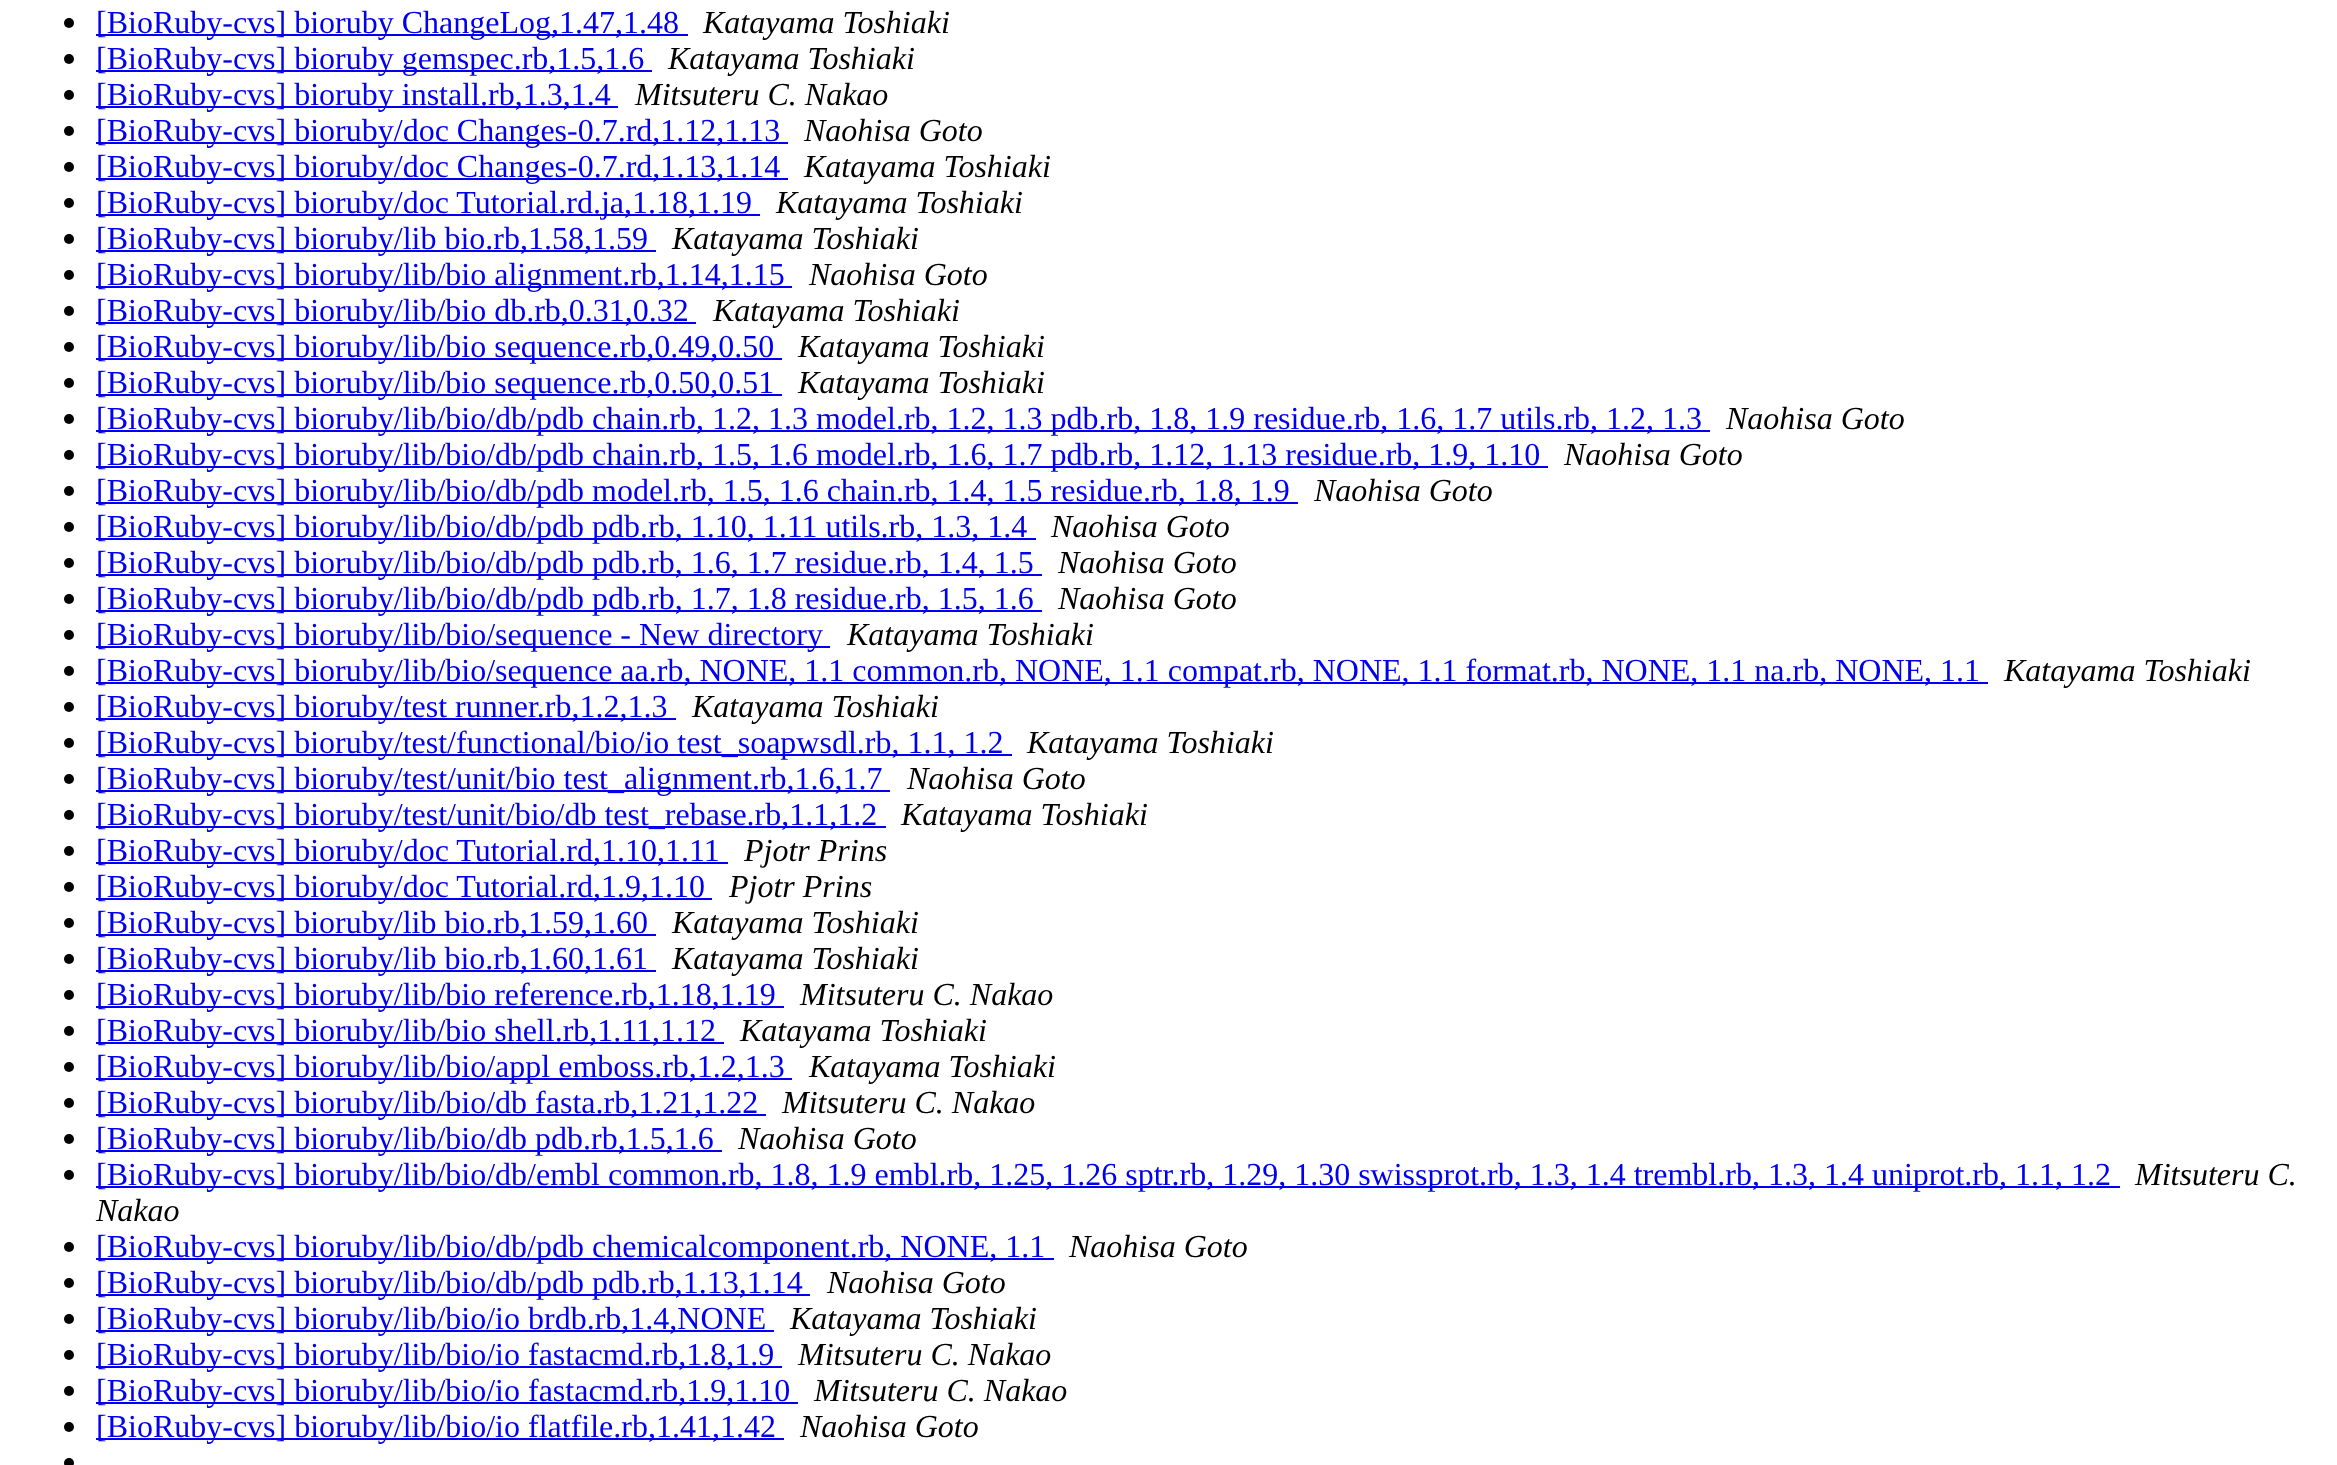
(async () => {
  const canvas = document.querySelector("canvas");
  canvas.width = 2337;
  canvas.height = 1465;
  const ctx = canvas.getContext("2d");
  ctx.miterLimit = 4;
  ctx.fontKerning = "normal";

  ctx.fillStyle = "#ffffff";
  ctx.fillRect(0, 0, 2337, 1465);
  ctx.fillStyle = "#000000";
  ctx.beginPath();
  ctx.arc(69, 23, 5, 0, Math.PI * 2);
  ctx.fill();
  ctx.fillStyle = "#0000ee";
  ctx.fillRect(96, 34, 592, 2);
  ctx.fillStyle = "#000000";
  ctx.beginPath();
  ctx.arc(69, 59, 5, 0, Math.PI * 2);
  ctx.fill();
  ctx.fillStyle = "#0000ee";
  ctx.fillRect(96, 70, 556, 2);
  ctx.fillStyle = "#000000";
  ctx.beginPath();
  ctx.arc(69, 95, 5, 0, Math.PI * 2);
  ctx.fill();
  ctx.fillStyle = "#0000ee";
  ctx.fillRect(96, 106, 522, 2);
  ctx.fillStyle = "#000000";
  ctx.beginPath();
  ctx.arc(69, 131, 5, 0, Math.PI * 2);
  ctx.fill();
  ctx.fillStyle = "#0000ee";
  ctx.fillRect(96, 142, 692, 2);
  ctx.fillStyle = "#000000";
  ctx.beginPath();
  ctx.arc(69, 167, 5, 0, Math.PI * 2);
  ctx.fill();
  ctx.fillStyle = "#0000ee";
  ctx.fillRect(96, 178, 692, 2);
  ctx.fillStyle = "#000000";
  ctx.beginPath();
  ctx.arc(69, 203, 5, 0, Math.PI * 2);
  ctx.fill();
  ctx.fillStyle = "#0000ee";
  ctx.fillRect(96, 214, 664, 2);
  ctx.fillStyle = "#000000";
  ctx.beginPath();
  ctx.arc(69, 239, 5, 0, Math.PI * 2);
  ctx.fill();
  ctx.fillStyle = "#0000ee";
  ctx.fillRect(96, 250, 560, 2);
  ctx.fillStyle = "#000000";
  ctx.beginPath();
  ctx.arc(69, 275, 5, 0, Math.PI * 2);
  ctx.fill();
  ctx.fillStyle = "#0000ee";
  ctx.fillRect(96, 286, 696, 2);
  ctx.fillStyle = "#000000";
  ctx.beginPath();
  ctx.arc(69, 311, 5, 0, Math.PI * 2);
  ctx.fill();
  ctx.fillStyle = "#0000ee";
  ctx.fillRect(96, 322, 600, 2);
  ctx.fillStyle = "#000000";
  ctx.beginPath();
  ctx.arc(69, 347, 5, 0, Math.PI * 2);
  ctx.fill();
  ctx.fillStyle = "#0000ee";
  ctx.fillRect(96, 358, 686, 2);
  ctx.fillStyle = "#000000";
  ctx.beginPath();
  ctx.arc(69, 383, 5, 0, Math.PI * 2);
  ctx.fill();
  ctx.fillStyle = "#0000ee";
  ctx.fillRect(96, 394, 686, 2);
  ctx.fillStyle = "#000000";
  ctx.beginPath();
  ctx.arc(69, 419, 5, 0, Math.PI * 2);
  ctx.fill();
  ctx.fillStyle = "#0000ee";
  ctx.fillRect(96, 430, 1614, 2);
  ctx.fillStyle = "#000000";
  ctx.beginPath();
  ctx.arc(69, 455, 5, 0, Math.PI * 2);
  ctx.fill();
  ctx.fillStyle = "#0000ee";
  ctx.fillRect(96, 466, 1452, 2);
  ctx.fillStyle = "#000000";
  ctx.beginPath();
  ctx.arc(69, 491, 5, 0, Math.PI * 2);
  ctx.fill();
  ctx.fillStyle = "#0000ee";
  ctx.fillRect(96, 502, 1202, 2);
  ctx.fillStyle = "#000000";
  ctx.beginPath();
  ctx.arc(69, 527, 5, 0, Math.PI * 2);
  ctx.fill();
  ctx.fillStyle = "#0000ee";
  ctx.fillRect(96, 538, 940, 2);
  ctx.fillStyle = "#000000";
  ctx.beginPath();
  ctx.arc(69, 563, 5, 0, Math.PI * 2);
  ctx.fill();
  ctx.fillStyle = "#0000ee";
  ctx.fillRect(96, 574, 946, 2);
  ctx.fillStyle = "#000000";
  ctx.beginPath();
  ctx.arc(69, 599, 5, 0, Math.PI * 2);
  ctx.fill();
  ctx.fillStyle = "#0000ee";
  ctx.fillRect(96, 610, 946, 2);
  ctx.fillStyle = "#000000";
  ctx.beginPath();
  ctx.arc(69, 635, 5, 0, Math.PI * 2);
  ctx.fill();
  ctx.fillStyle = "#0000ee";
  ctx.fillRect(96, 646, 734, 2);
  ctx.fillStyle = "#000000";
  ctx.beginPath();
  ctx.arc(69, 671, 5, 0, Math.PI * 2);
  ctx.fill();
  ctx.fillStyle = "#0000ee";
  ctx.fillRect(96, 682, 1892, 2);
  ctx.fillStyle = "#000000";
  ctx.beginPath();
  ctx.arc(69, 707, 5, 0, Math.PI * 2);
  ctx.fill();
  ctx.fillStyle = "#0000ee";
  ctx.fillRect(96, 718, 580, 2);
  ctx.fillStyle = "#000000";
  ctx.beginPath();
  ctx.arc(69, 743, 5, 0, Math.PI * 2);
  ctx.fill();
  ctx.fillStyle = "#0000ee";
  ctx.fillRect(96, 754, 916, 2);
  ctx.fillStyle = "#000000";
  ctx.beginPath();
  ctx.arc(69, 779, 5, 0, Math.PI * 2);
  ctx.fill();
  ctx.fillStyle = "#0000ee";
  ctx.fillRect(96, 790, 794, 2);
  ctx.fillStyle = "#000000";
  ctx.beginPath();
  ctx.arc(69, 815, 5, 0, Math.PI * 2);
  ctx.fill();
  ctx.fillStyle = "#0000ee";
  ctx.fillRect(96, 826, 790, 2);
  ctx.fillStyle = "#000000";
  ctx.beginPath();
  ctx.arc(69, 851, 5, 0, Math.PI * 2);
  ctx.fill();
  ctx.fillStyle = "#0000ee";
  ctx.fillRect(96, 862, 632, 2);
  ctx.fillStyle = "#000000";
  ctx.beginPath();
  ctx.arc(69, 887, 5, 0, Math.PI * 2);
  ctx.fill();
  ctx.fillStyle = "#0000ee";
  ctx.fillRect(96, 898, 616, 2);
  ctx.fillStyle = "#000000";
  ctx.beginPath();
  ctx.arc(69, 923, 5, 0, Math.PI * 2);
  ctx.fill();
  ctx.fillStyle = "#0000ee";
  ctx.fillRect(96, 934, 560, 2);
  ctx.fillStyle = "#000000";
  ctx.beginPath();
  ctx.arc(69, 959, 5, 0, Math.PI * 2);
  ctx.fill();
  ctx.fillStyle = "#0000ee";
  ctx.fillRect(96, 970, 560, 2);
  ctx.fillStyle = "#000000";
  ctx.beginPath();
  ctx.arc(69, 995, 5, 0, Math.PI * 2);
  ctx.fill();
  ctx.fillStyle = "#0000ee";
  ctx.fillRect(96, 1006, 688, 2);
  ctx.fillStyle = "#000000";
  ctx.beginPath();
  ctx.arc(69, 1031, 5, 0, Math.PI * 2);
  ctx.fill();
  ctx.fillStyle = "#0000ee";
  ctx.fillRect(96, 1042, 628, 2);
  ctx.fillStyle = "#000000";
  ctx.beginPath();
  ctx.arc(69, 1067, 5, 0, Math.PI * 2);
  ctx.fill();
  ctx.fillStyle = "#0000ee";
  ctx.fillRect(96, 1078, 696, 2);
  ctx.fillStyle = "#000000";
  ctx.beginPath();
  ctx.arc(69, 1103, 5, 0, Math.PI * 2);
  ctx.fill();
  ctx.fillStyle = "#0000ee";
  ctx.fillRect(96, 1114, 670, 2);
  ctx.fillStyle = "#000000";
  ctx.beginPath();
  ctx.arc(69, 1139, 5, 0, Math.PI * 2);
  ctx.fill();
  ctx.fillStyle = "#0000ee";
  ctx.fillRect(96, 1150, 626, 2);
  ctx.fillStyle = "#000000";
  ctx.beginPath();
  ctx.arc(69, 1175, 5, 0, Math.PI * 2);
  ctx.fill();
  ctx.fillStyle = "#0000ee";
  ctx.fillRect(96, 1186, 2024, 2);
  ctx.fillStyle = "#000000";
  ctx.beginPath();
  ctx.arc(69, 1247, 5, 0, Math.PI * 2);
  ctx.fill();
  ctx.fillStyle = "#0000ee";
  ctx.fillRect(96, 1258, 958, 2);
  ctx.fillStyle = "#000000";
  ctx.beginPath();
  ctx.arc(69, 1283, 5, 0, Math.PI * 2);
  ctx.fill();
  ctx.fillStyle = "#0000ee";
  ctx.fillRect(96, 1294, 714, 2);
  ctx.fillStyle = "#000000";
  ctx.beginPath();
  ctx.arc(69, 1319, 5, 0, Math.PI * 2);
  ctx.fill();
  ctx.fillStyle = "#0000ee";
  ctx.fillRect(96, 1330, 678, 2);
  ctx.fillStyle = "#000000";
  ctx.beginPath();
  ctx.arc(69, 1355, 5, 0, Math.PI * 2);
  ctx.fill();
  ctx.fillStyle = "#0000ee";
  ctx.fillRect(96, 1366, 686, 2);
  ctx.fillStyle = "#000000";
  ctx.beginPath();
  ctx.arc(69, 1391, 5, 0, Math.PI * 2);
  ctx.fill();
  ctx.fillStyle = "#0000ee";
  ctx.fillRect(96, 1402, 702, 2);
  ctx.fillStyle = "#000000";
  ctx.beginPath();
  ctx.arc(69, 1427, 5, 0, Math.PI * 2);
  ctx.fill();
  ctx.fillStyle = "#0000ee";
  ctx.fillRect(96, 1438, 688, 2);
  ctx.fillStyle = "#000000";
  ctx.beginPath();
  ctx.arc(69, 1463, 5, 0, Math.PI * 2);
  ctx.fill();
  ctx.font = "32px Liberation Serif";
  ctx.fillStyle = "#0000ee";
  ctx.fillText("[BioRuby-cvs] bioruby ChangeLog,1.47,1.48", 96, 33);
  ctx.font = "italic 32px Liberation Serif";
  ctx.fillStyle = "#000000";
  ctx.fillText("Katayama Toshiaki", 703, 33);
  ctx.font = "32px Liberation Serif";
  ctx.fillStyle = "#0000ee";
  ctx.fillText("[BioRuby-cvs] bioruby gemspec.rb,1.5,1.6", 96, 69);
  ctx.font = "italic 32px Liberation Serif";
  ctx.fillStyle = "#000000";
  ctx.fillText("Katayama Toshiaki", 668, 69);
  ctx.font = "32px Liberation Serif";
  ctx.fillStyle = "#0000ee";
  ctx.fillText("[BioRuby-cvs] bioruby install.rb,1.3,1.4", 96, 105);
  ctx.font = "italic 32px Liberation Serif";
  ctx.fillStyle = "#000000";
  ctx.fillText("Mitsuteru C. Nakao", 635, 105);
  ctx.font = "32px Liberation Serif";
  ctx.fillStyle = "#0000ee";
  ctx.fillText("[BioRuby-cvs] bioruby/doc Changes-0.7.rd,1.12,1.13", 96, 141);
  ctx.font = "italic 32px Liberation Serif";
  ctx.fillStyle = "#000000";
  ctx.fillText("Naohisa Goto", 804, 141);
  ctx.font = "32px Liberation Serif";
  ctx.fillStyle = "#0000ee";
  ctx.fillText("[BioRuby-cvs] bioruby/doc Changes-0.7.rd,1.13,1.14", 96, 177);
  ctx.font = "italic 32px Liberation Serif";
  ctx.fillStyle = "#000000";
  ctx.fillText("Katayama Toshiaki", 804, 177);
  ctx.font = "32px Liberation Serif";
  ctx.fillStyle = "#0000ee";
  ctx.fillText("[BioRuby-cvs] bioruby/doc Tutorial.rd.ja,1.18,1.19", 96, 213);
  ctx.font = "italic 32px Liberation Serif";
  ctx.fillStyle = "#000000";
  ctx.fillText("Katayama Toshiaki", 776, 213);
  ctx.font = "32px Liberation Serif";
  ctx.fillStyle = "#0000ee";
  ctx.fillText("[BioRuby-cvs] bioruby/lib bio.rb,1.58,1.59", 96, 249);
  ctx.font = "italic 32px Liberation Serif";
  ctx.fillStyle = "#000000";
  ctx.fillText("Katayama Toshiaki", 672, 249);
  ctx.font = "32px Liberation Serif";
  ctx.fillStyle = "#0000ee";
  ctx.fillText("[BioRuby-cvs] bioruby/lib/bio alignment.rb,1.14,1.15", 96, 285);
  ctx.font = "italic 32px Liberation Serif";
  ctx.fillStyle = "#000000";
  ctx.fillText("Naohisa Goto", 809, 285);
  ctx.font = "32px Liberation Serif";
  ctx.fillStyle = "#0000ee";
  ctx.fillText("[BioRuby-cvs] bioruby/lib/bio db.rb,0.31,0.32", 96, 321);
  ctx.font = "italic 32px Liberation Serif";
  ctx.fillStyle = "#000000";
  ctx.fillText("Katayama Toshiaki", 713, 321);
  ctx.font = "32px Liberation Serif";
  ctx.fillStyle = "#0000ee";
  ctx.fillText("[BioRuby-cvs] bioruby/lib/bio sequence.rb,0.49,0.50", 96, 357);
  ctx.font = "italic 32px Liberation Serif";
  ctx.fillStyle = "#000000";
  ctx.fillText("Katayama Toshiaki", 798, 357);
  ctx.font = "32px Liberation Serif";
  ctx.fillStyle = "#0000ee";
  ctx.fillText("[BioRuby-cvs] bioruby/lib/bio sequence.rb,0.50,0.51", 96, 393);
  ctx.font = "italic 32px Liberation Serif";
  ctx.fillStyle = "#000000";
  ctx.fillText("Katayama Toshiaki", 798, 393);
  ctx.font = "32px Liberation Serif";
  ctx.fillStyle = "#0000ee";
  ctx.fillText("[BioRuby-cvs] bioruby/lib/bio/db/pdb chain.rb, 1.2, 1.3 model.rb, 1.2, 1.3 pdb.rb, 1.8, 1.9 residue.rb, 1.6, 1.7 utils.rb, 1.2, 1.3", 96, 429);
  ctx.font = "italic 32px Liberation Serif";
  ctx.fillStyle = "#000000";
  ctx.fillText("Naohisa Goto", 1726, 429);
  ctx.font = "32px Liberation Serif";
  ctx.fillStyle = "#0000ee";
  ctx.fillText("[BioRuby-cvs] bioruby/lib/bio/db/pdb chain.rb, 1.5, 1.6 model.rb, 1.6, 1.7 pdb.rb, 1.12, 1.13 residue.rb, 1.9, 1.10", 96, 465);
  ctx.font = "italic 32px Liberation Serif";
  ctx.fillStyle = "#000000";
  ctx.fillText("Naohisa Goto", 1564, 465);
  ctx.font = "32px Liberation Serif";
  ctx.fillStyle = "#0000ee";
  ctx.fillText("[BioRuby-cvs] bioruby/lib/bio/db/pdb model.rb, 1.5, 1.6 chain.rb, 1.4, 1.5 residue.rb, 1.8, 1.9", 96, 501);
  ctx.font = "italic 32px Liberation Serif";
  ctx.fillStyle = "#000000";
  ctx.fillText("Naohisa Goto", 1314, 501);
  ctx.font = "32px Liberation Serif";
  ctx.fillStyle = "#0000ee";
  ctx.fillText("[BioRuby-cvs] bioruby/lib/bio/db/pdb pdb.rb, 1.10, 1.11 utils.rb, 1.3, 1.4", 96, 537);
  ctx.font = "italic 32px Liberation Serif";
  ctx.fillStyle = "#000000";
  ctx.fillText("Naohisa Goto", 1051, 537);
  ctx.font = "32px Liberation Serif";
  ctx.fillStyle = "#0000ee";
  ctx.fillText("[BioRuby-cvs] bioruby/lib/bio/db/pdb pdb.rb, 1.6, 1.7 residue.rb, 1.4, 1.5", 96, 573);
  ctx.font = "italic 32px Liberation Serif";
  ctx.fillStyle = "#000000";
  ctx.fillText("Naohisa Goto", 1058, 573);
  ctx.font = "32px Liberation Serif";
  ctx.fillStyle = "#0000ee";
  ctx.fillText("[BioRuby-cvs] bioruby/lib/bio/db/pdb pdb.rb, 1.7, 1.8 residue.rb, 1.5, 1.6", 96, 609);
  ctx.font = "italic 32px Liberation Serif";
  ctx.fillStyle = "#000000";
  ctx.fillText("Naohisa Goto", 1058, 609);
  ctx.font = "32px Liberation Serif";
  ctx.fillStyle = "#0000ee";
  ctx.fillText("[BioRuby-cvs] bioruby/lib/bio/sequence - New directory", 96, 645);
  ctx.font = "italic 32px Liberation Serif";
  ctx.fillStyle = "#000000";
  ctx.fillText("Katayama Toshiaki", 847, 645);
  ctx.font = "32px Liberation Serif";
  ctx.fillStyle = "#0000ee";
  ctx.fillText("[BioRuby-cvs] bioruby/lib/bio/sequence aa.rb, NONE, 1.1 common.rb, NONE, 1.1 compat.rb, NONE, 1.1 format.rb, NONE, 1.1 na.rb, NONE, 1.1", 96, 681);
  ctx.font = "italic 32px Liberation Serif";
  ctx.fillStyle = "#000000";
  ctx.fillText("Katayama Toshiaki", 2004, 681);
  ctx.font = "32px Liberation Serif";
  ctx.fillStyle = "#0000ee";
  ctx.fillText("[BioRuby-cvs] bioruby/test runner.rb,1.2,1.3", 96, 717);
  ctx.font = "italic 32px Liberation Serif";
  ctx.fillStyle = "#000000";
  ctx.fillText("Katayama Toshiaki", 692, 717);
  ctx.font = "32px Liberation Serif";
  ctx.fillStyle = "#0000ee";
  ctx.fillText("[BioRuby-cvs] bioruby/test/functional/bio/io test_soapwsdl.rb, 1.1, 1.2", 96, 753);
  ctx.font = "italic 32px Liberation Serif";
  ctx.fillStyle = "#000000";
  ctx.fillText("Katayama Toshiaki", 1027, 753);
  ctx.font = "32px Liberation Serif";
  ctx.fillStyle = "#0000ee";
  ctx.fillText("[BioRuby-cvs] bioruby/test/unit/bio test_alignment.rb,1.6,1.7", 96, 789);
  ctx.font = "italic 32px Liberation Serif";
  ctx.fillStyle = "#000000";
  ctx.fillText("Naohisa Goto", 907, 789);
  ctx.font = "32px Liberation Serif";
  ctx.fillStyle = "#0000ee";
  ctx.fillText("[BioRuby-cvs] bioruby/test/unit/bio/db test_rebase.rb,1.1,1.2", 96, 825);
  ctx.font = "italic 32px Liberation Serif";
  ctx.fillStyle = "#000000";
  ctx.fillText("Katayama Toshiaki", 901, 825);
  ctx.font = "32px Liberation Serif";
  ctx.fillStyle = "#0000ee";
  ctx.fillText("[BioRuby-cvs] bioruby/doc Tutorial.rd,1.10,1.11", 96, 861);
  ctx.font = "italic 32px Liberation Serif";
  ctx.fillStyle = "#000000";
  ctx.fillText("Pjotr Prins", 744, 861);
  ctx.font = "32px Liberation Serif";
  ctx.fillStyle = "#0000ee";
  ctx.fillText("[BioRuby-cvs] bioruby/doc Tutorial.rd,1.9,1.10", 96, 897);
  ctx.font = "italic 32px Liberation Serif";
  ctx.fillStyle = "#000000";
  ctx.fillText("Pjotr Prins", 729, 897);
  ctx.font = "32px Liberation Serif";
  ctx.fillStyle = "#0000ee";
  ctx.fillText("[BioRuby-cvs] bioruby/lib bio.rb,1.59,1.60", 96, 933);
  ctx.font = "italic 32px Liberation Serif";
  ctx.fillStyle = "#000000";
  ctx.fillText("Katayama Toshiaki", 672, 933);
  ctx.font = "32px Liberation Serif";
  ctx.fillStyle = "#0000ee";
  ctx.fillText("[BioRuby-cvs] bioruby/lib bio.rb,1.60,1.61", 96, 969);
  ctx.font = "italic 32px Liberation Serif";
  ctx.fillStyle = "#000000";
  ctx.fillText("Katayama Toshiaki", 672, 969);
  ctx.font = "32px Liberation Serif";
  ctx.fillStyle = "#0000ee";
  ctx.fillText("[BioRuby-cvs] bioruby/lib/bio reference.rb,1.18,1.19", 96, 1005);
  ctx.font = "italic 32px Liberation Serif";
  ctx.fillStyle = "#000000";
  ctx.fillText("Mitsuteru C. Nakao", 800, 1005);
  ctx.font = "32px Liberation Serif";
  ctx.fillStyle = "#0000ee";
  ctx.fillText("[BioRuby-cvs] bioruby/lib/bio shell.rb,1.11,1.12", 96, 1041);
  ctx.font = "italic 32px Liberation Serif";
  ctx.fillStyle = "#000000";
  ctx.fillText("Katayama Toshiaki", 740, 1041);
  ctx.font = "32px Liberation Serif";
  ctx.fillStyle = "#0000ee";
  ctx.fillText("[BioRuby-cvs] bioruby/lib/bio/appl emboss.rb,1.2,1.3", 96, 1077);
  ctx.font = "italic 32px Liberation Serif";
  ctx.fillStyle = "#000000";
  ctx.fillText("Katayama Toshiaki", 809, 1077);
  ctx.font = "32px Liberation Serif";
  ctx.fillStyle = "#0000ee";
  ctx.fillText("[BioRuby-cvs] bioruby/lib/bio/db fasta.rb,1.21,1.22", 96, 1113);
  ctx.font = "italic 32px Liberation Serif";
  ctx.fillStyle = "#000000";
  ctx.fillText("Mitsuteru C. Nakao", 782, 1113);
  ctx.font = "32px Liberation Serif";
  ctx.fillStyle = "#0000ee";
  ctx.fillText("[BioRuby-cvs] bioruby/lib/bio/db pdb.rb,1.5,1.6", 96, 1149);
  ctx.font = "italic 32px Liberation Serif";
  ctx.fillStyle = "#000000";
  ctx.fillText("Naohisa Goto", 738, 1149);
  ctx.font = "32px Liberation Serif";
  ctx.fillStyle = "#0000ee";
  ctx.fillText("[BioRuby-cvs] bioruby/lib/bio/db/embl common.rb, 1.8, 1.9 embl.rb, 1.25, 1.26 sptr.rb, 1.29, 1.30 swissprot.rb, 1.3, 1.4 trembl.rb, 1.3, 1.4 uniprot.rb, 1.1, 1.2", 96, 1185);
  ctx.font = "italic 32px Liberation Serif";
  ctx.fillStyle = "#000000";
  ctx.fillText("Mitsuteru C.", 2135, 1185);
  ctx.fillText("Nakao", 96, 1221);
  ctx.font = "32px Liberation Serif";
  ctx.fillStyle = "#0000ee";
  ctx.fillText("[BioRuby-cvs] bioruby/lib/bio/db/pdb chemicalcomponent.rb, NONE, 1.1", 96, 1257);
  ctx.font = "italic 32px Liberation Serif";
  ctx.fillStyle = "#000000";
  ctx.fillText("Naohisa Goto", 1069, 1257);
  ctx.font = "32px Liberation Serif";
  ctx.fillStyle = "#0000ee";
  ctx.fillText("[BioRuby-cvs] bioruby/lib/bio/db/pdb pdb.rb,1.13,1.14", 96, 1293);
  ctx.font = "italic 32px Liberation Serif";
  ctx.fillStyle = "#000000";
  ctx.fillText("Naohisa Goto", 827, 1293);
  ctx.font = "32px Liberation Serif";
  ctx.fillStyle = "#0000ee";
  ctx.fillText("[BioRuby-cvs] bioruby/lib/bio/io brdb.rb,1.4,NONE", 96, 1329);
  ctx.font = "italic 32px Liberation Serif";
  ctx.fillStyle = "#000000";
  ctx.fillText("Katayama Toshiaki", 790, 1329);
  ctx.font = "32px Liberation Serif";
  ctx.fillStyle = "#0000ee";
  ctx.fillText("[BioRuby-cvs] bioruby/lib/bio/io fastacmd.rb,1.8,1.9", 96, 1365);
  ctx.font = "italic 32px Liberation Serif";
  ctx.fillStyle = "#000000";
  ctx.fillText("Mitsuteru C. Nakao", 798, 1365);
  ctx.font = "32px Liberation Serif";
  ctx.fillStyle = "#0000ee";
  ctx.fillText("[BioRuby-cvs] bioruby/lib/bio/io fastacmd.rb,1.9,1.10", 96, 1401);
  ctx.font = "italic 32px Liberation Serif";
  ctx.fillStyle = "#000000";
  ctx.fillText("Mitsuteru C. Nakao", 814, 1401);
  ctx.font = "32px Liberation Serif";
  ctx.fillStyle = "#0000ee";
  ctx.fillText("[BioRuby-cvs] bioruby/lib/bio/io flatfile.rb,1.41,1.42", 96, 1437);
  ctx.font = "italic 32px Liberation Serif";
  ctx.fillStyle = "#000000";
  ctx.fillText("Naohisa Goto", 800, 1437);
})();
